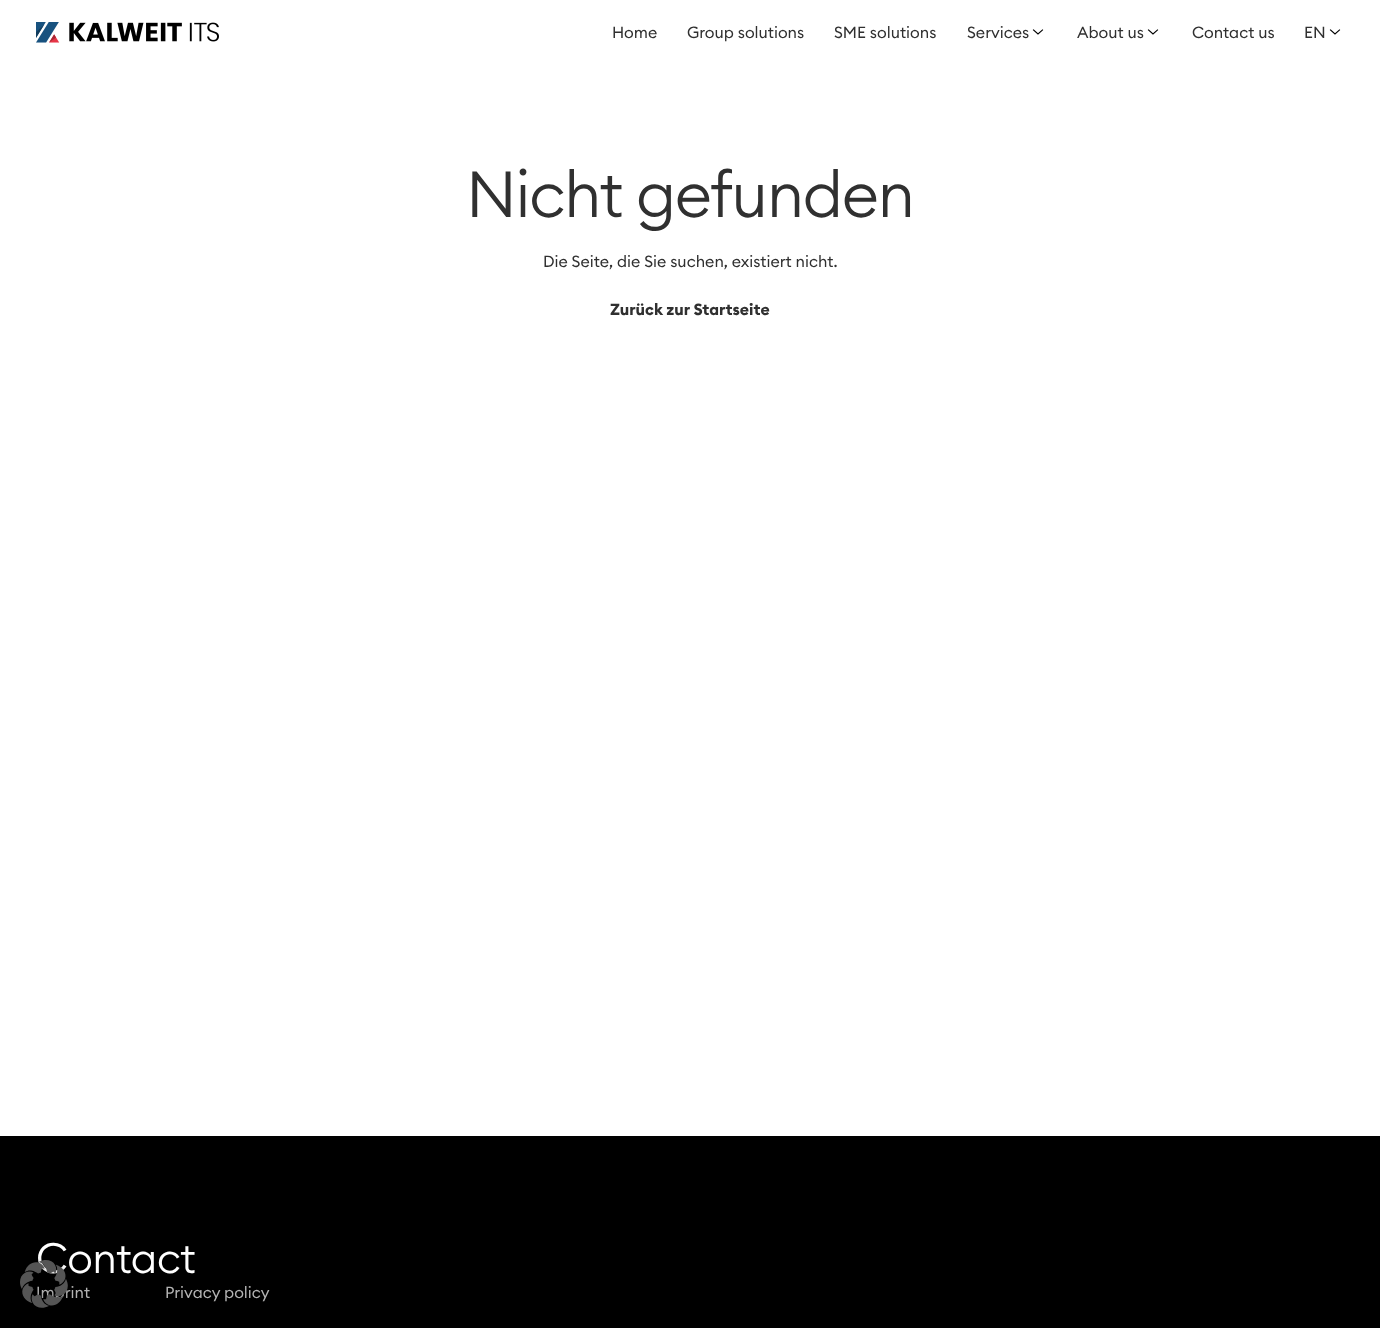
(async () => {
  const canvas = document.querySelector("canvas");
  canvas.width = 1380;
  canvas.height = 1328;
  const ctx = canvas.getContext("2d");
  ctx.miterLimit = 4;
  ctx.fontKerning = "normal";
  async function loadImage(src) {
    const img = new Image();
    img.src = src;
    await img.decode();
    return img;
  }
  let path;

  ctx.fillStyle = "#ffffff";
  ctx.fillRect(0, 0, 1380, 1328);
  ctx.drawImage(await loadImage("img/1.png"), 36, 22, 183, 21);
  path = new Path2D("M1033.5 30L1038 34L1042.5 30");
  ctx.strokeStyle = "#000000";
  ctx.lineWidth = 1.1;
  ctx.lineCap = "square";
  ctx.stroke(path);
  path = new Path2D("M1148.5 30L1153 34L1157.5 30");
  ctx.stroke(path);
  path = new Path2D("M1330.5 30L1335 34L1339.5 30");
  ctx.stroke(path);
  ctx.fillStyle = "#000000";
  ctx.fillRect(0, 1136, 1380, 192);
  ctx.font = "16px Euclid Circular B";
  ctx.fillStyle = "#303030";
  for (const [text, x, y] of [
    ["Home", 612, 38],
    ["Group solutions", 687, 38],
    ["SME solutions", 834, 38],
    ["Services", 967, 38],
    ["About us", 1077, 38],
    ["Contact us", 1192, 38],
    ["EN", 1304, 38],
  ]) {
    ctx.fillText(text, x, y);
  }
  ctx.letterSpacing = "-1.5px";
  ctx.font = "300 64px Euclid Circular B";
  ctx.fillText("Nicht gefunden", 466, 217);
  ctx.letterSpacing = "0px";
  ctx.font = "16px Euclid Circular B";
  ctx.fillText("Die Seite, die Sie suchen, existiert nicht.", 543, 267);
  ctx.font = "bold 16px Euclid Circular B";
  ctx.fillText("Zurück zur Startseite", 610, 315);
  ctx.letterSpacing = "-0.5px";
  ctx.font = "300 42px Euclid Circular B";
  ctx.fillStyle = "#ffffff";
  ctx.fillText("Contact", 36, 1273);
  ctx.letterSpacing = "0px";
  ctx.font = "16px Euclid Circular B";
  ctx.fillStyle = "#b3b3b3";
  ctx.fillText("Imprint", 36, 1298);
  ctx.fillText("Privacy policy", 165, 1298);
  ctx.drawImage(await loadImage("img/2.png"), 20, 1256, 50, 52);
})();
